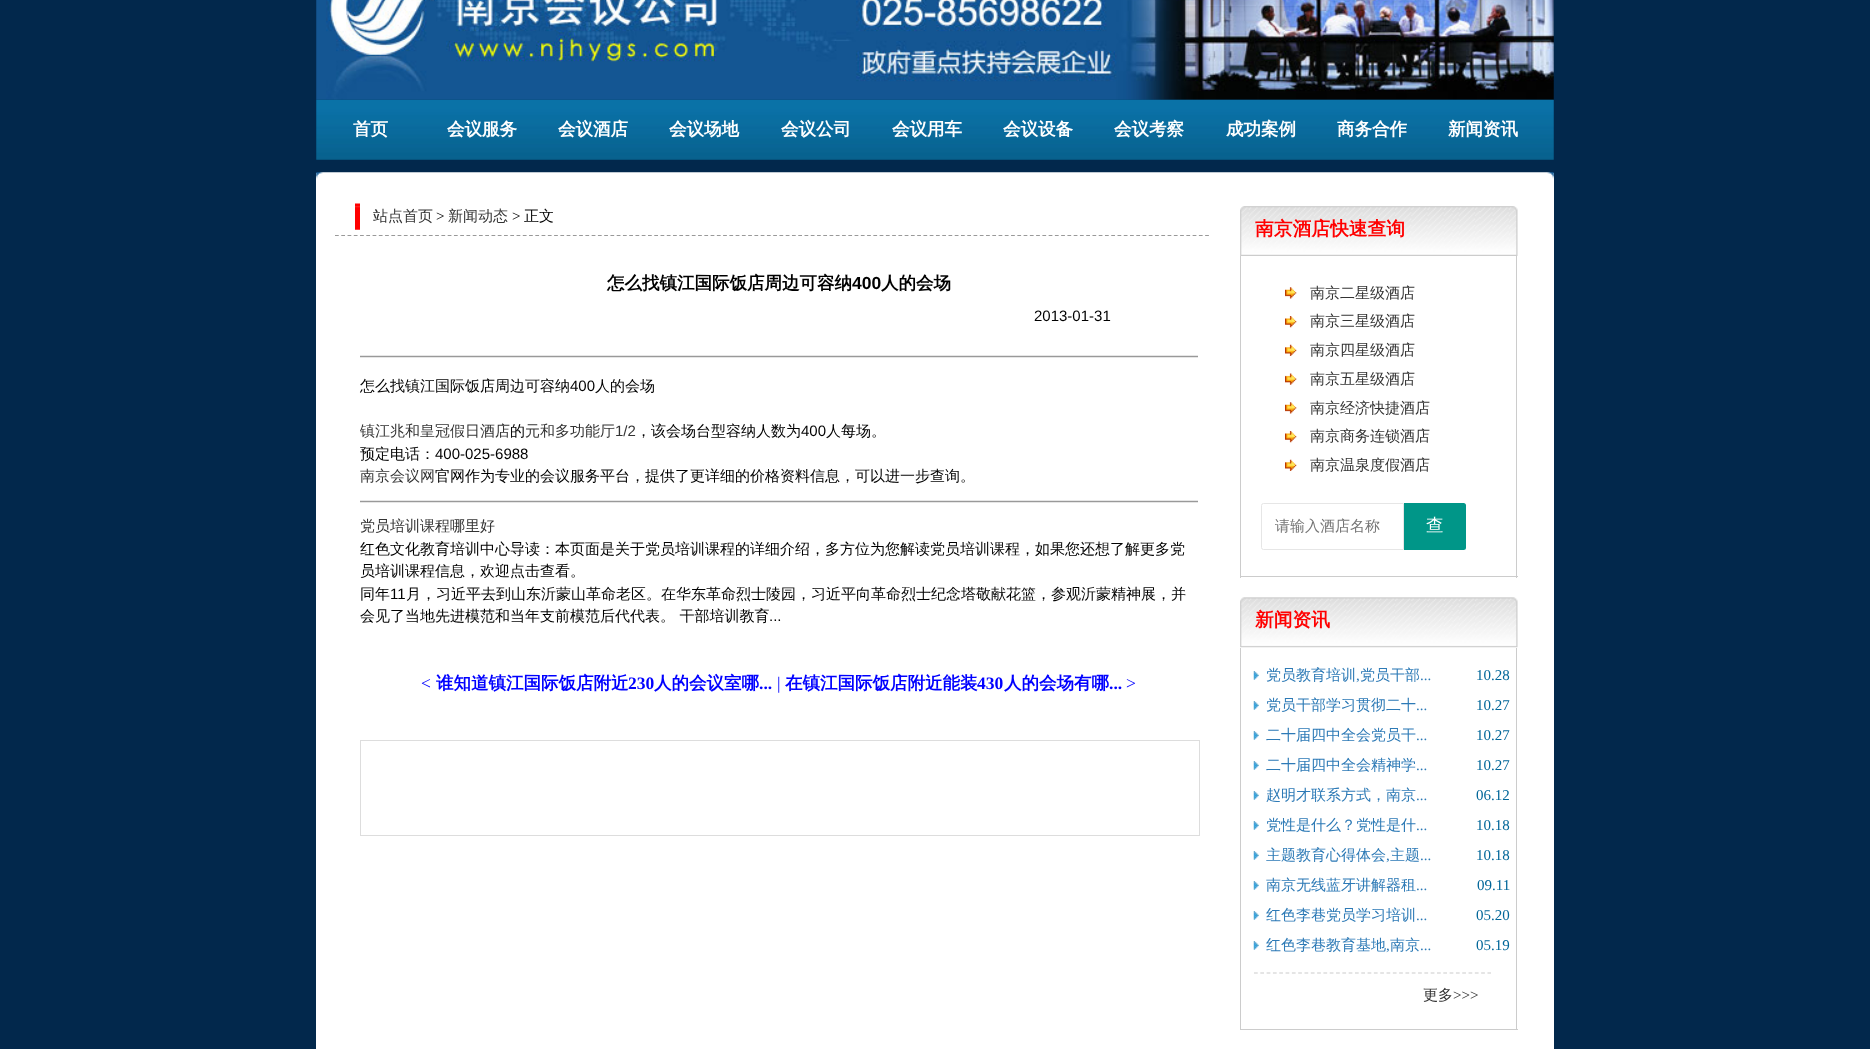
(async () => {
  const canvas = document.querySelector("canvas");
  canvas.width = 1870;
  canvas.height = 1049;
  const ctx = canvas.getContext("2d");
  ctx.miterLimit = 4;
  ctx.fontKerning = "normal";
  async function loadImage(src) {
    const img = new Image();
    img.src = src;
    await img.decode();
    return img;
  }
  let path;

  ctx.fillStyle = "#02284c";
  ctx.fillRect(0, 0, 1870, 1049);
  ctx.drawImage(await loadImage("img/1.png"), 316, 0, 1238, 100);
  ctx.drawImage(await loadImage("img/2.png"), 316, 99, 1238, 61);
  ctx.fillStyle = "#ffffff";
  ctx.fillRect(316, 173, 1238, 876);
  ctx.drawImage(await loadImage("img/3.png"), 316, 172, 1238, 7);
  ctx.drawImage(await loadImage("img/4.png"), 355, 203, 5, 27);
  path = new Path2D("M335 235.5H1210");
  ctx.strokeStyle = "#999999";
  ctx.lineWidth = 1.2;
  ctx.setLineDash([3.75, 2.51]);
  ctx.stroke(path);
  for (const [x, y, w, h, color] of [
    [360, 355, 838, 3, "#e6e6e6"],
    [360, 356, 838, 1, "#999999"],
    [360, 500, 838, 3, "#e6e6e6"],
    [360, 501, 838, 1, "#999999"],
  ]) {
    ctx.fillStyle = color;
    ctx.fillRect(x, y, w, h);
  }
  ctx.strokeStyle = "#dddddd";
  ctx.lineWidth = 1;
  ctx.setLineDash([]);
  ctx.strokeRect(360.5, 740.5, 839, 95);
  ctx.drawImage(await loadImage("img/5.png"), 1240, 206, 278, 50);
  for (const [x, y, w, h, color] of [
    [1516, 256, 1, 322, "#cccccc"],
    [1240, 576, 278, 1, "#cccccc"],
    [1240, 256, 1, 322, "#cccccc"],
  ]) {
    ctx.fillStyle = color;
    ctx.fillRect(x, y, w, h);
  }
  ctx.drawImage(await loadImage("img/6.png"), 1285, 287, 12, 12);
  ctx.drawImage(await loadImage("img/7.png"), 1285, 316, 12, 12);
  ctx.drawImage(await loadImage("img/8.png"), 1285, 344, 12, 12);
  ctx.drawImage(await loadImage("img/9.png"), 1285, 373, 12, 12);
  ctx.drawImage(await loadImage("img/6.png"), 1285, 402, 12, 12);
  ctx.drawImage(await loadImage("img/7.png"), 1285, 431, 12, 12);
  ctx.drawImage(await loadImage("img/8.png"), 1285, 459, 12, 12);
  ctx.beginPath();
  ctx.roundRect(1261.5, 503.5, 142, 46, [2, 0, 0, 2]);
  ctx.strokeStyle = "#e6e6e6";
  ctx.stroke();
  ctx.fillStyle = "#009688";
  ctx.beginPath();
  ctx.roundRect(1404, 503, 62, 47, [0, 2.5, 2.5, 0]);
  ctx.fill();
  ctx.drawImage(await loadImage("img/10.png"), 1240, 597, 278, 51);
  for (const [x, y, w, h, color] of [
    [1516, 648, 1, 382, "#cccccc"],
    [1240, 1029, 278, 1, "#cccccc"],
    [1240, 648, 1, 382, "#cccccc"],
  ]) {
    ctx.fillStyle = color;
    ctx.fillRect(x, y, w, h);
  }
  ctx.drawImage(await loadImage("img/11.png"), 1253, 671, 6, 9);
  ctx.drawImage(await loadImage("img/12.png"), 1253, 701, 6, 9);
  ctx.drawImage(await loadImage("img/11.png"), 1253, 731, 6, 9);
  ctx.drawImage(await loadImage("img/11.png"), 1253, 761, 6, 9);
  ctx.drawImage(await loadImage("img/11.png"), 1253, 791, 6, 9);
  ctx.drawImage(await loadImage("img/11.png"), 1253, 821, 6, 9);
  ctx.drawImage(await loadImage("img/11.png"), 1253, 851, 6, 9);
  ctx.drawImage(await loadImage("img/11.png"), 1253, 881, 6, 9);
  ctx.drawImage(await loadImage("img/11.png"), 1253, 911, 6, 9);
  ctx.drawImage(await loadImage("img/11.png"), 1253, 941, 6, 9);
  path = new Path2D("M1254 973H1491");
  ctx.strokeStyle = "#cccccc";
  ctx.lineWidth = 1.2;
  ctx.setLineDash([3.75, 2.56]);
  ctx.stroke(path);
  ctx.font = "bold 17.5px WenQuanYi Zen Hei";
  ctx.fillStyle = "#ffffff";
  for (const [text, x, y] of [
    ["首页", 353, 135],
    ["会议服务", 447, 135],
    ["会议酒店", 558, 135],
    ["会议场地", 669, 135],
    ["会议公司", 781, 135],
    ["会议用车", 892, 135],
    ["会议设备", 1003, 135],
    ["会议考察", 1114, 135],
    ["成功案例", 1226, 135],
    ["商务合作", 1337, 135],
    ["新闻资讯", 1448, 135],
  ]) {
    ctx.fillText(text, x, y);
  }
  ctx.font = "500 15px WenQuanYi Zen Hei";
  ctx.fillStyle = "#333333";
  ctx.fillText("站点首页", 373, 221);
  ctx.font = "15px Liberation Serif";
  ctx.fillStyle = "#000000";
  ctx.fillText(">", 436, 221);
  ctx.font = "500 15px WenQuanYi Zen Hei";
  ctx.fillStyle = "#333333";
  ctx.fillText("新闻动态", 448, 221);
  ctx.font = "15px Liberation Serif";
  ctx.fillStyle = "#000000";
  ctx.fillText(">", 512, 221);
  ctx.font = "500 15px WenQuanYi Zen Hei";
  ctx.fillText("正文", 524, 221);
  ctx.font = "bold 17.5px WenQuanYi Zen Hei";
  ctx.fillText("怎么找镇江国际饭店周边可容纳", 607, 289);
  ctx.font = "bold 17.5px Liberation Sans";
  ctx.fillText("400", 852, 289);
  ctx.font = "bold 17.5px WenQuanYi Zen Hei";
  ctx.fillText("人的会场", 881, 289);
  ctx.font = "15px Liberation Sans";
  ctx.fillText("2013-01-31", 1034, 321);
  ctx.font = "500 15px WenQuanYi Zen Hei";
  ctx.fillText("怎么找镇江国际饭店周边可容纳", 360, 391);
  ctx.font = "15px Liberation Sans";
  ctx.fillText("400", 570, 391);
  ctx.font = "500 15px WenQuanYi Zen Hei";
  ctx.fillText("人的会场", 595, 391);
  ctx.fillStyle = "#333333";
  ctx.fillText("镇江兆和皇冠假日酒店", 360, 436);
  ctx.fillStyle = "#000000";
  ctx.fillText("的", 510, 436);
  ctx.fillStyle = "#333333";
  ctx.fillText("元和多功能厅", 525, 436);
  ctx.font = "15px Liberation Sans";
  ctx.fillText("1/2", 615, 436);
  ctx.font = "500 15px WenQuanYi Zen Hei";
  ctx.fillStyle = "#000000";
  ctx.fillText("，该会场台型容纳人数为", 636, 436);
  ctx.font = "15px Liberation Sans";
  ctx.fillText("400", 801, 436);
  ctx.font = "500 15px WenQuanYi Zen Hei";
  ctx.fillText("人每场。", 826, 436);
  ctx.fillText("预定电话：", 360, 459);
  ctx.font = "15px Liberation Sans";
  ctx.fillText("400-025-6988", 435, 459);
  ctx.font = "500 15px WenQuanYi Zen Hei";
  ctx.fillStyle = "#333333";
  ctx.fillText("南京会议网", 360, 481);
  ctx.fillStyle = "#000000";
  ctx.fillText("官网作为专业的会议服务平台，提供了更详细的价格资料信息，可以进一步查询。", 435, 481);
  ctx.fillStyle = "#333333";
  ctx.fillText("党员培训课程哪里好", 360, 531);
  ctx.fillStyle = "#000000";
  for (const [text, x, y] of [
    ["红色文化教育培训中心导读：本页面是关于党员培训课程的详细介绍，多方位为您解读党员培训课程，如果您还想了解更多党", 360, 554],
    ["员培训课程信息，欢迎点击查看。", 360, 576],
    ["同年", 360, 599],
  ]) {
    ctx.fillText(text, x, y);
  }
  ctx.font = "15px Liberation Sans";
  ctx.fillText("11", 390, 599);
  ctx.font = "500 15px WenQuanYi Zen Hei";
  ctx.fillText("月，习近平去到山东沂蒙山革命老区。在华东革命烈士陵园，习近平向革命烈士纪念塔敬献花篮，参观沂蒙精神展，并", 406, 599);
  ctx.fillText("会见了当地先进模范和当年支前模范后代代表。 干部培训教育", 360, 621);
  ctx.font = "15px Liberation Sans";
  ctx.fillText("...", 769, 621);
  ctx.font = "17.5px Liberation Serif";
  ctx.fillStyle = "#0000ff";
  ctx.fillText("<", 421, 689);
  ctx.font = "bold 17.5px WenQuanYi Zen Hei";
  ctx.fillText("谁知道镇江国际饭店附近", 436, 689);
  ctx.font = "bold 17.5px Liberation Serif";
  ctx.fillText("230", 628, 689);
  ctx.font = "bold 17.5px WenQuanYi Zen Hei";
  ctx.fillText("人的会议室哪", 654, 689);
  ctx.font = "bold 17.5px Liberation Serif";
  ctx.fillText("...", 759, 689);
  ctx.font = "17.5px Liberation Serif";
  ctx.fillText("|", 777, 689);
  ctx.font = "bold 17.5px WenQuanYi Zen Hei";
  ctx.fillText("在镇江国际饭店附近能装", 785, 689);
  ctx.font = "bold 17.5px Liberation Serif";
  ctx.fillText("430", 977, 689);
  ctx.font = "bold 17.5px WenQuanYi Zen Hei";
  ctx.fillText("人的会场有哪", 1004, 689);
  ctx.font = "bold 17.5px Liberation Serif";
  ctx.fillText("...", 1109, 689);
  ctx.font = "17.5px Liberation Serif";
  ctx.fillText(">", 1126, 689);
  ctx.font = "bold 18.75px WenQuanYi Zen Hei";
  ctx.fillStyle = "#ff0000";
  ctx.fillText("南京酒店快速查询", 1255, 235);
  ctx.font = "500 15px WenQuanYi Zen Hei";
  ctx.fillStyle = "#333333";
  for (const [text, x, y] of [
    ["南京二星级酒店", 1310, 298],
    ["南京三星级酒店", 1310, 326],
    ["南京四星级酒店", 1310, 355],
    ["南京五星级酒店", 1310, 384],
    ["南京经济快捷酒店", 1310, 413],
    ["南京商务连锁酒店", 1310, 441],
    ["南京温泉度假酒店", 1310, 470],
  ]) {
    ctx.fillText(text, x, y);
  }
  ctx.fillStyle = "#757575";
  ctx.fillText("请输入酒店名称", 1275, 531);
  ctx.font = "500 17.5px WenQuanYi Zen Hei";
  ctx.fillStyle = "#ffffff";
  ctx.fillText("查", 1426, 531);
  ctx.font = "bold 18.75px WenQuanYi Zen Hei";
  ctx.fillStyle = "#ff0000";
  ctx.fillText("新闻资讯", 1255, 626);
  ctx.font = "500 15px WenQuanYi Zen Hei";
  ctx.fillStyle = "#2d7ab6";
  ctx.fillText("党员教育培训", 1266, 680);
  ctx.font = "15px Liberation Serif";
  ctx.fillText(",", 1356, 680);
  ctx.font = "500 15px WenQuanYi Zen Hei";
  ctx.fillText("党员干部", 1360, 680);
  ctx.font = "15px Liberation Serif";
  ctx.fillText("...", 1420, 680);
  ctx.fillStyle = "#006699";
  ctx.fillText("10.28", 1476, 680);
  ctx.font = "500 15px WenQuanYi Zen Hei";
  ctx.fillStyle = "#2d7ab6";
  ctx.fillText("党员干部学习贯彻二十", 1266, 710);
  ctx.font = "15px Liberation Serif";
  ctx.fillText("...", 1416, 710);
  ctx.fillStyle = "#006699";
  ctx.fillText("10.27", 1476, 710);
  ctx.font = "500 15px WenQuanYi Zen Hei";
  ctx.fillStyle = "#2d7ab6";
  ctx.fillText("二十届四中全会党员干", 1266, 740);
  ctx.font = "15px Liberation Serif";
  ctx.fillText("...", 1416, 740);
  ctx.fillStyle = "#006699";
  ctx.fillText("10.27", 1476, 740);
  ctx.font = "500 15px WenQuanYi Zen Hei";
  ctx.fillStyle = "#2d7ab6";
  ctx.fillText("二十届四中全会精神学", 1266, 770);
  ctx.font = "15px Liberation Serif";
  ctx.fillText("...", 1416, 770);
  ctx.fillStyle = "#006699";
  ctx.fillText("10.27", 1476, 770);
  ctx.font = "500 15px WenQuanYi Zen Hei";
  ctx.fillStyle = "#2d7ab6";
  ctx.fillText("赵明才联系方式，南京", 1266, 800);
  ctx.font = "15px Liberation Serif";
  ctx.fillText("...", 1416, 800);
  ctx.fillStyle = "#006699";
  ctx.fillText("06.12", 1476, 800);
  ctx.font = "500 15px WenQuanYi Zen Hei";
  ctx.fillStyle = "#2d7ab6";
  ctx.fillText("党性是什么？党性是什", 1266, 830);
  ctx.font = "15px Liberation Serif";
  ctx.fillText("...", 1416, 830);
  ctx.fillStyle = "#006699";
  ctx.fillText("10.18", 1476, 830);
  ctx.font = "500 15px WenQuanYi Zen Hei";
  ctx.fillStyle = "#2d7ab6";
  ctx.fillText("主题教育心得体会", 1266, 860);
  ctx.font = "15px Liberation Serif";
  ctx.fillText(",", 1386, 860);
  ctx.font = "500 15px WenQuanYi Zen Hei";
  ctx.fillText("主题", 1390, 860);
  ctx.font = "15px Liberation Serif";
  ctx.fillText("...", 1420, 860);
  ctx.fillStyle = "#006699";
  ctx.fillText("10.18", 1476, 860);
  ctx.font = "500 15px WenQuanYi Zen Hei";
  ctx.fillStyle = "#2d7ab6";
  ctx.fillText("南京无线蓝牙讲解器租", 1266, 890);
  ctx.font = "15px Liberation Serif";
  ctx.fillText("...", 1416, 890);
  ctx.fillStyle = "#006699";
  ctx.fillText("09.11", 1477, 890);
  ctx.font = "500 15px WenQuanYi Zen Hei";
  ctx.fillStyle = "#2d7ab6";
  ctx.fillText("红色李巷党员学习培训", 1266, 920);
  ctx.font = "15px Liberation Serif";
  ctx.fillText("...", 1416, 920);
  ctx.fillStyle = "#006699";
  ctx.fillText("05.20", 1476, 920);
  ctx.font = "500 15px WenQuanYi Zen Hei";
  ctx.fillStyle = "#2d7ab6";
  ctx.fillText("红色李巷教育基地", 1266, 950);
  ctx.font = "15px Liberation Serif";
  ctx.fillText(",", 1386, 950);
  ctx.font = "500 15px WenQuanYi Zen Hei";
  ctx.fillText("南京", 1390, 950);
  ctx.font = "15px Liberation Serif";
  ctx.fillText("...", 1420, 950);
  ctx.fillStyle = "#006699";
  ctx.fillText("05.19", 1476, 950);
  ctx.font = "500 15px WenQuanYi Zen Hei";
  ctx.fillStyle = "#333333";
  ctx.fillText("更多", 1423, 1000);
  ctx.font = "15px Liberation Serif";
  ctx.fillText(">>>", 1453, 1000);
})();
